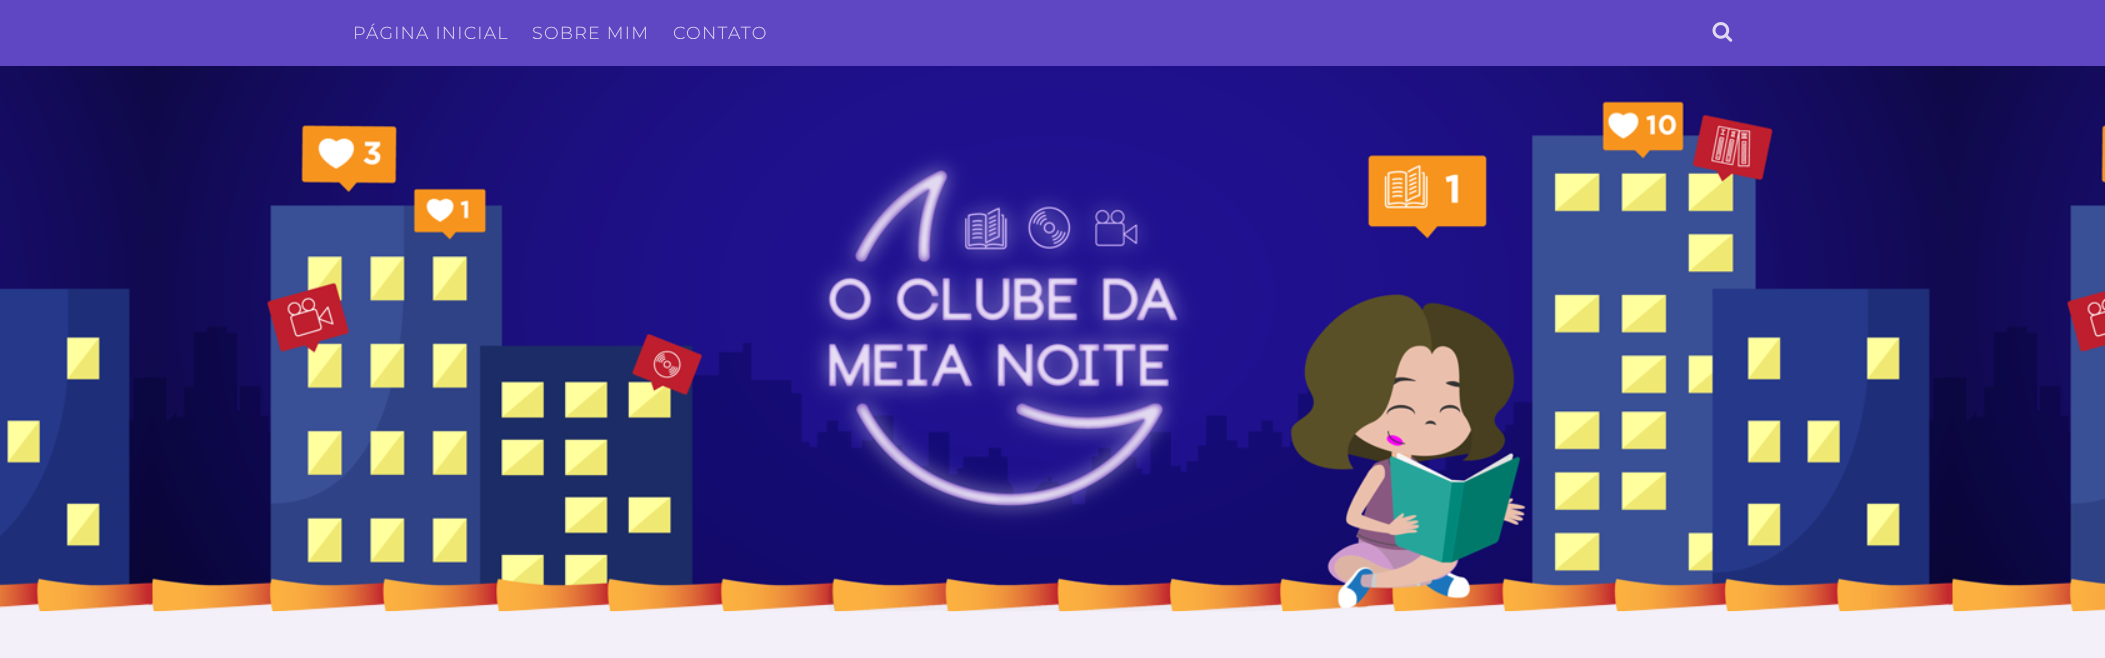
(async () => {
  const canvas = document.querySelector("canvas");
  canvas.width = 2105;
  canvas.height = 658;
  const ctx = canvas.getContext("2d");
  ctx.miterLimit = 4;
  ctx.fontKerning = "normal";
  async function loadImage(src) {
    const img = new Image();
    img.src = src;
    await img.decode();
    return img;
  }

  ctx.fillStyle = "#f4f0fa";
  ctx.fillRect(0, 0, 2105, 658);
  ctx.fillStyle = "#5f47c4";
  ctx.fillRect(0, 0, 2105, 66);
  ctx.drawImage(await loadImage("img/1.png"), 1712, 22, 21, 20);
  ctx.drawImage(await loadImage("img/2.png"), 0, 66, 2105, 546);
  ctx.letterSpacing = "1.25px";
  ctx.font = "300 17.5px Montserrat";
  ctx.fillStyle = "#e2d8f0";
  for (const [text, x, y] of [
    ["PÁGINA INICIAL", 353, 39],
    ["SOBRE MIM", 532, 39],
    ["CONTATO", 673, 39],
  ]) {
    ctx.fillText(text, x, y);
  }
})();
